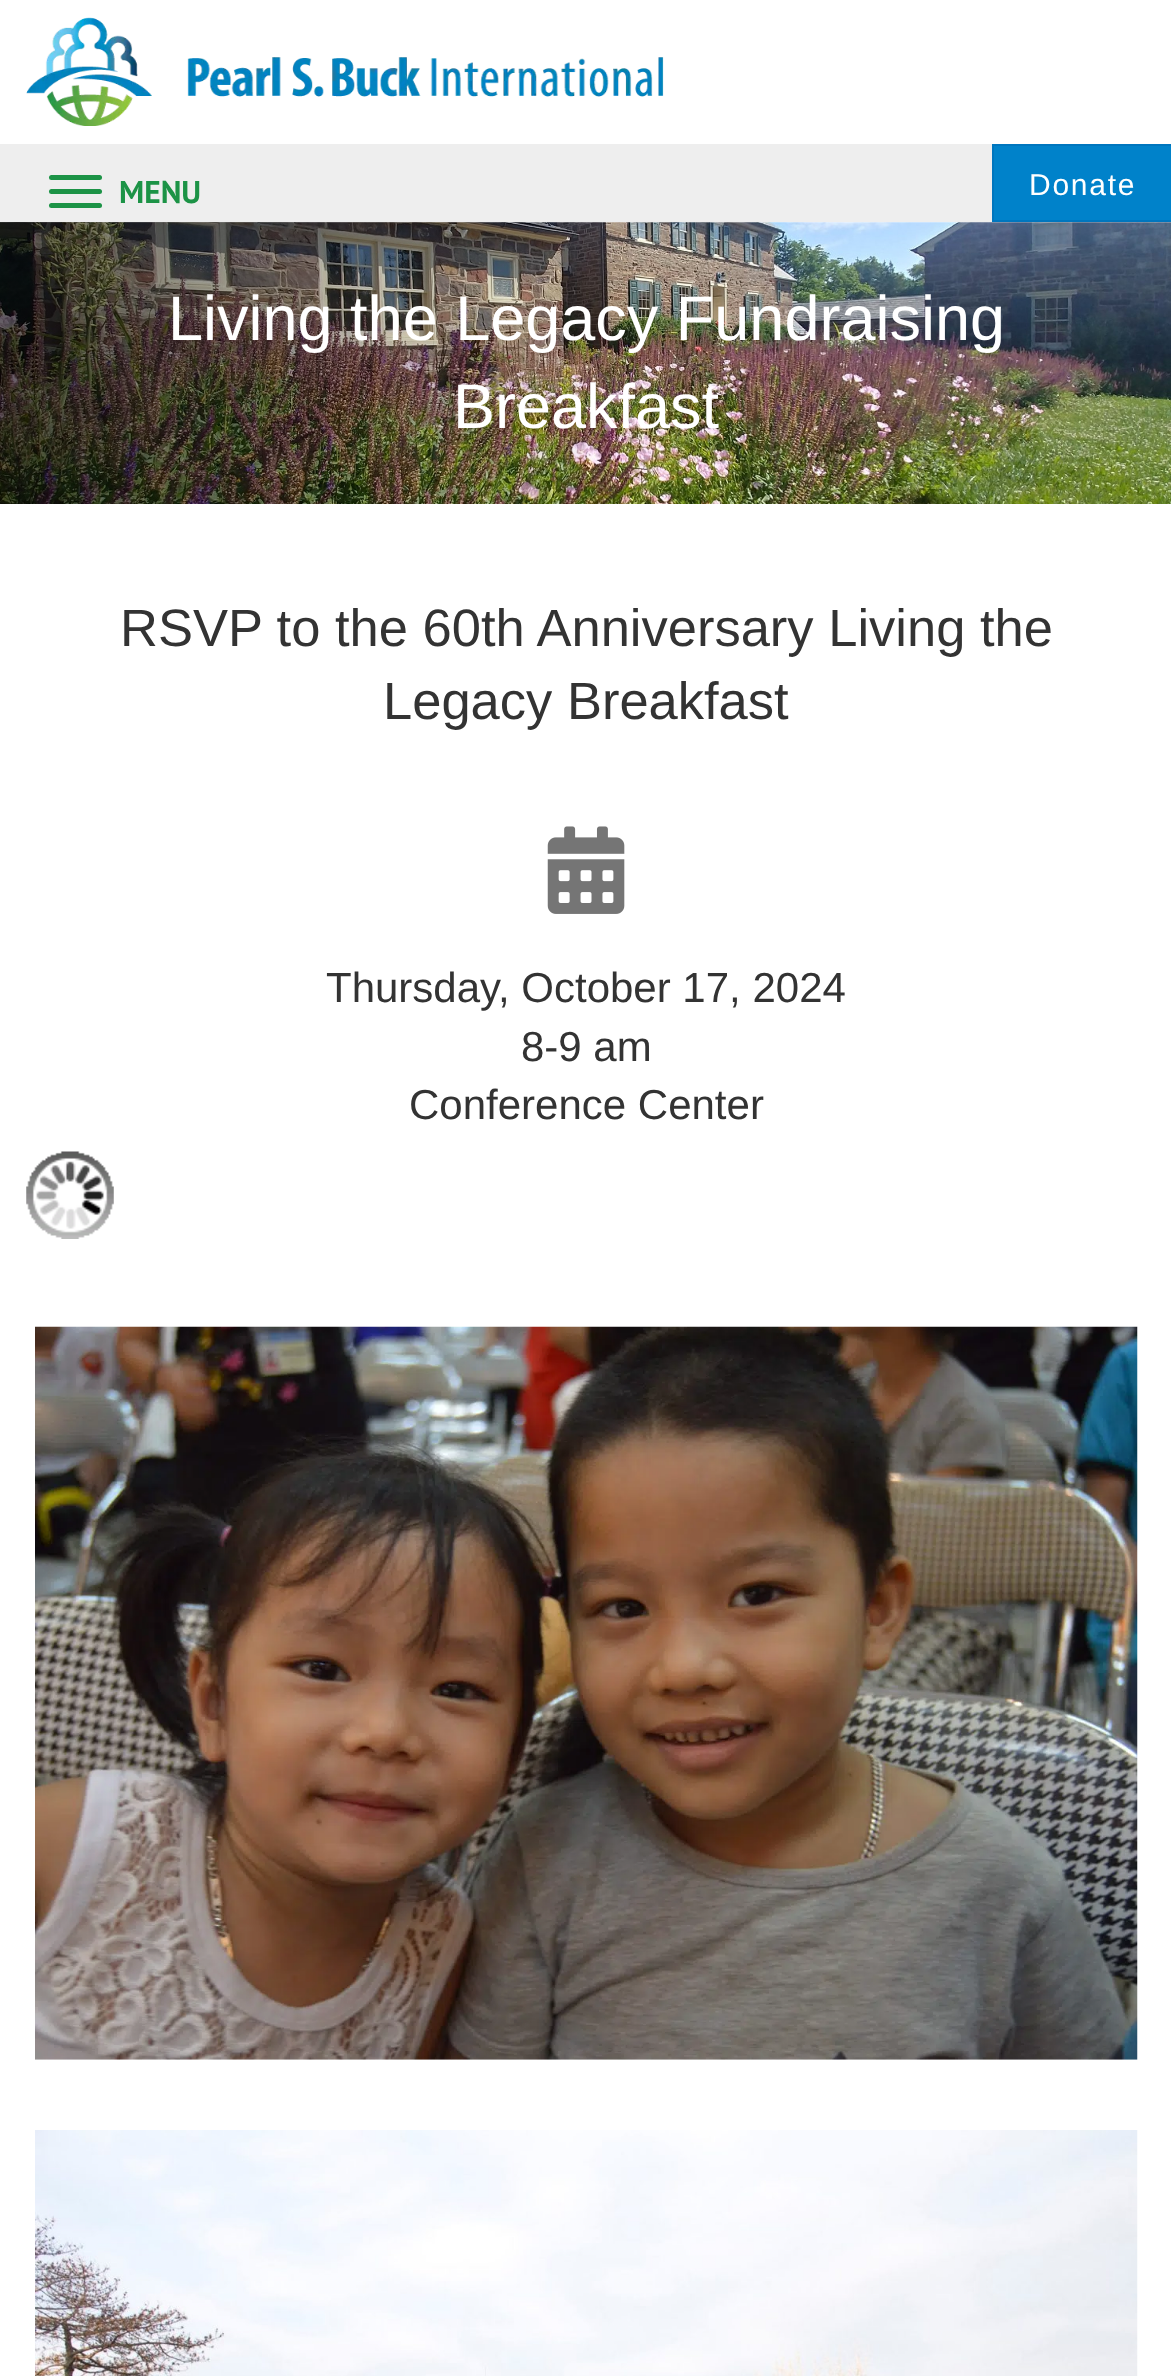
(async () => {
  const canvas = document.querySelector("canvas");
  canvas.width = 1171;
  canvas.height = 2376;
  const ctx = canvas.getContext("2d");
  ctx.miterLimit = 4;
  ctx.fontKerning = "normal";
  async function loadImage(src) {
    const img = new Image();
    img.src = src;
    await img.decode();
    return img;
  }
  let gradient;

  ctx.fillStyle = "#ffffff";
  ctx.fillRect(0, 0, 1171, 2376);
  ctx.drawImage(await loadImage("img/1.png"), 26, 17, 638, 109);
  ctx.fillStyle = "#eeeeee";
  ctx.fillRect(0, 144, 992, 78);
  ctx.fillStyle = "#1c9346";
  ctx.beginPath();
  ctx.roundRect(49, 189, 53, 5, 2.5);
  ctx.fill();
  ctx.beginPath();
  ctx.roundRect(49, 175, 53, 5, 2.5);
  ctx.fill();
  ctx.beginPath();
  ctx.roundRect(49, 203, 53, 5, 2.5);
  ctx.fill();
  ctx.fillStyle = "#0082ca";
  ctx.beginPath();
  ctx.rect(993, 145, 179, 76);
  ctx.fill();
  ctx.strokeStyle = "#0076be";
  ctx.lineWidth = 2;
  ctx.stroke();
  ctx.drawImage(await loadImage("img/2.png"), 0, 222, 1171, 282);
  gradient = ctx.createLinearGradient(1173, 363, 0, 363);
  gradient.addColorStop(0.48, "rgba(0, 0, 0, 0)");
  gradient.addColorStop(1, "rgba(0, 0, 0, 0.6)");
  ctx.fillStyle = gradient;
  ctx.fillRect(0, 222, 588, 282);
  ctx.drawImage(await loadImage("img/3.png"), 547, 826, 78, 88);
  ctx.drawImage(await loadImage("img/4.png"), 26, 1151, 88, 88);
  ctx.drawImage(await loadImage("img/5.png"), 35, 1326, 1103, 734);
  ctx.drawImage(await loadImage("img/6.png"), 35, 2130, 1103, 246);
  ctx.font = "bold 31.5px PT Sans";
  ctx.fillStyle = "#1c9346";
  ctx.fillText("MENU", 119, 203);
  ctx.letterSpacing = "1.75px";
  ctx.font = "30px Liberation Sans";
  ctx.fillStyle = "#ffffff";
  ctx.fillText("Donate", 1029, 195);
  ctx.letterSpacing = "0px";
  ctx.font = "63px Liberation Sans";
  ctx.fillText("Living the Legacy Fundraising", 168, 340);
  ctx.fillText("Breakfast", 453, 428);
  ctx.font = "52.5px Liberation Sans";
  ctx.fillStyle = "#333333";
  ctx.fillText("RSVP to the 60th Anniversary Living the", 120, 646);
  ctx.fillText("Legacy Breakfast", 383, 719);
  ctx.font = "42px Liberation Sans";
  for (const [text, x, y] of [
    ["Thursday, October 17, 2024", 326, 1002],
    ["8-9 am", 521, 1061],
    ["Conference Center", 409, 1119],
  ]) {
    ctx.fillText(text, x, y);
  }
})();
